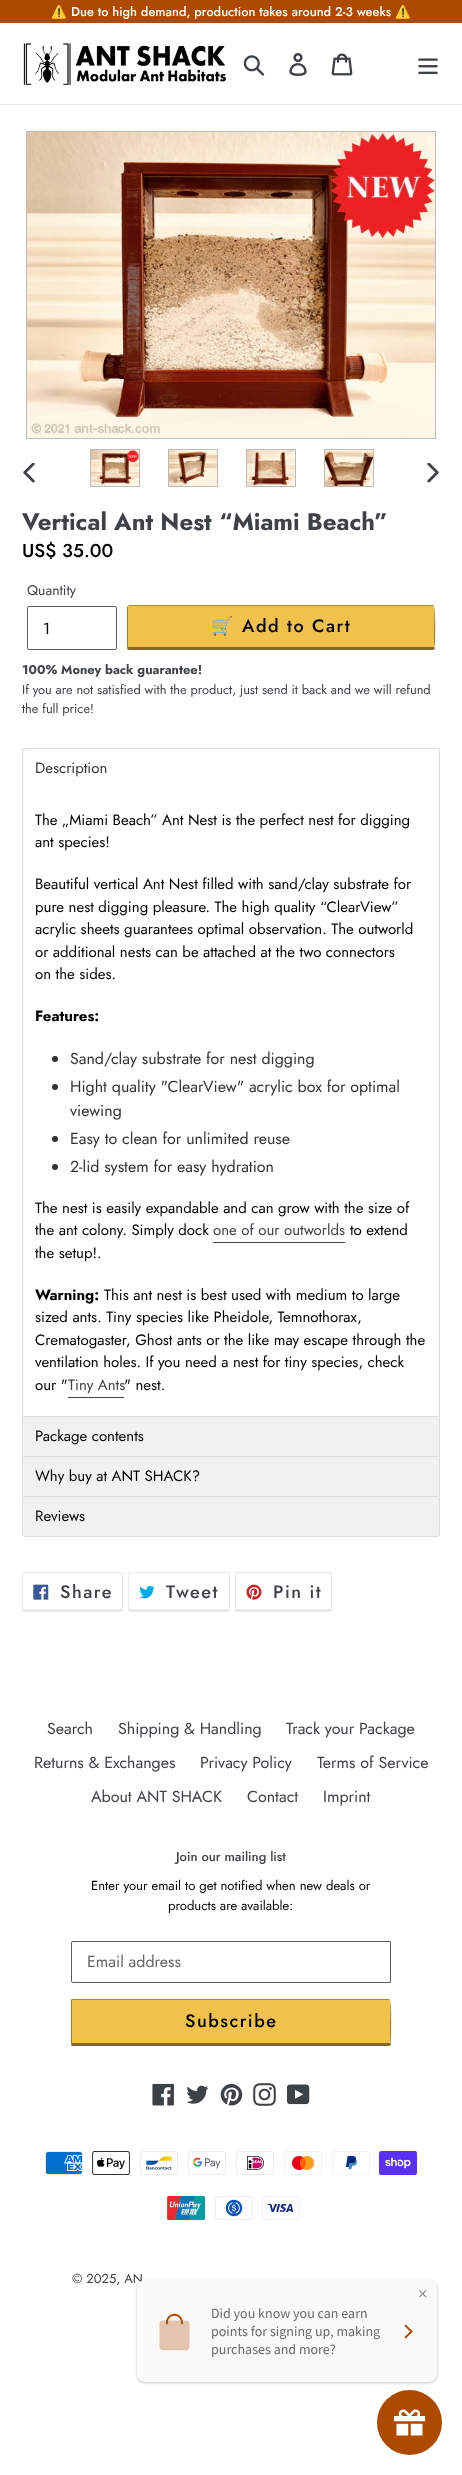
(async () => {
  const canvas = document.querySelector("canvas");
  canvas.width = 462;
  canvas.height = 2475;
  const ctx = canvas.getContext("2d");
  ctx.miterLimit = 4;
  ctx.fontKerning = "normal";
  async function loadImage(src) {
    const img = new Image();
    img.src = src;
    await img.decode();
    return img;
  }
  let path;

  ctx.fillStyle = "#ffffff";
  ctx.fillRect(0, 0, 462, 2475);
  ctx.fillStyle = "#ae4a00";
  ctx.fillRect(0, 0, 462, 23);
  ctx.fillStyle = "#e8e9eb";
  ctx.fillRect(0, 104, 462, 1);
  ctx.drawImage(await loadImage("img/1.png"), 23, 42, 203, 43);
  ctx.drawImage(await loadImage("img/2.png"), 243, 55, 22, 21);
  ctx.drawImage(await loadImage("img/3.png"), 289, 53, 18, 23);
  ctx.drawImage(await loadImage("img/4.png"), 331, 53, 22, 23);
  ctx.drawImage(await loadImage("img/5.png"), 418, 58, 20, 16);
  ctx.strokeStyle = "#bbbbbb";
  ctx.strokeRect(26.5, 131.5, 409, 307);
  ctx.drawImage(await loadImage("img/6.png"), 27, 132, 408, 306);
  ctx.drawImage(await loadImage("img/7.png"), 23, 463, 12, 20);
  ctx.strokeRect(90.5, 449.5, 49, 37);
  ctx.drawImage(await loadImage("img/8.png"), 91, 450, 48, 36);
  ctx.strokeRect(168.5, 449.5, 49, 37);
  ctx.drawImage(await loadImage("img/9.png"), 169, 450, 48, 36);
  ctx.strokeRect(246.5, 449.5, 49, 37);
  ctx.drawImage(await loadImage("img/10.png"), 247, 450, 48, 36);
  ctx.strokeRect(324.5, 449.5, 49, 37);
  ctx.drawImage(await loadImage("img/11.png"), 325, 450, 48, 36);
  ctx.drawImage(await loadImage("img/12.png"), 427, 463, 12, 20);
  ctx.beginPath();
  ctx.roundRect(27.5, 606.5, 89, 43, 1.5);
  ctx.strokeStyle = "#5a5e62";
  ctx.stroke();
  ctx.fillStyle = "#f0c14b";
  path = new Path2D("M129 606H433C434 606 434 606 434 607V647H128V606Z");
  ctx.fill(path);
  ctx.fillStyle = "#a88734";
  path = new Path2D("M129 605L128 606H434L433 605Z");
  ctx.fill(path);
  ctx.fillStyle = "#9c7e31";
  path = new Path2D("M435 648C435 643 436 607 434 606C435 607 433 643 435 649Z");
  ctx.fill(path);
  ctx.fillStyle = "#846a29";
  path = new Path2D("M129 650H433L435 649L434 647H128L127 649Z");
  ctx.fill(path);
  ctx.fillStyle = "#9c7e31";
  path = new Path2D("M127 607V649L128 647V606Z");
  ctx.fill(path);
  ctx.fillStyle = "#dddddd";
  ctx.fillRect(439, 788, 1, 628);
  ctx.fillRect(22, 788, 1, 628);
  path = new Path2D("M25 748H437C439 748 440 749 440 751V789H22V751C22 749 23 748 25 748ZM25 749H437C438 749 439 750 439 751V789H23V751C23 750 24 749 25 749Z");
  ctx.fill(path, "evenodd");
  ctx.fillStyle = "#333333";
  ctx.beginPath();
  ctx.arc(55, 1059, 3, 0, Math.PI * 2);
  ctx.fill();
  ctx.beginPath();
  ctx.arc(55, 1087, 3, 0, Math.PI * 2);
  ctx.fill();
  ctx.beginPath();
  ctx.arc(55, 1139, 3, 0, Math.PI * 2);
  ctx.fill();
  ctx.beginPath();
  ctx.arc(55, 1167, 3, 0, Math.PI * 2);
  ctx.fill();
  for (const [x, y, w, h, color] of [
    [213, 1242, 132, 1, "#3d4246"],
    [68, 1397, 56, 1, "#3d4246"],
    [23, 1417, 416, 39, "#f1f1f1"],
    [22, 1416, 418, 1, "#dddddd"],
    [439, 1416, 1, 40, "#dddddd"],
    [22, 1416, 1, 40, "#dddddd"],
    [23, 1457, 416, 39, "#f1f1f1"],
    [22, 1456, 418, 1, "#dddddd"],
    [439, 1456, 1, 40, "#dddddd"],
    [22, 1456, 1, 40, "#dddddd"],
  ]) {
    ctx.fillStyle = color;
    ctx.fillRect(x, y, w, h);
  }
  ctx.fillStyle = "#f1f1f1";
  ctx.beginPath();
  ctx.roundRect(22.5, 1496.5, 417, 40, [0, 0, 2.5, 2.5]);
  ctx.fill();
  ctx.strokeStyle = "#dddddd";
  ctx.stroke();
  ctx.beginPath();
  ctx.roundRect(22.5, 1572.5, 100, 39, 1.5);
  ctx.strokeStyle = "#e8e9eb";
  ctx.stroke();
  ctx.fillStyle = "#e8e9eb";
  ctx.fillRect(23, 1609, 99, 2);
  ctx.drawImage(await loadImage("img/13.png"), 33, 1584, 16, 16);
  ctx.beginPath();
  ctx.roundRect(128.5, 1572.5, 101, 39, 1.5);
  ctx.stroke();
  ctx.fillRect(129, 1609, 100, 2);
  ctx.drawImage(await loadImage("img/14.png"), 139, 1585, 16, 14);
  ctx.beginPath();
  ctx.roundRect(235.5, 1572.5, 96, 39, 1.5);
  ctx.stroke();
  ctx.fillRect(236, 1609, 95, 2);
  ctx.drawImage(await loadImage("img/15.png"), 246, 1584, 16, 16);
  ctx.beginPath();
  ctx.roundRect(71.5, 1941.5, 319, 41, [1.5, 0, 0, 1.5]);
  ctx.strokeStyle = "#5a5e62";
  ctx.stroke();
  ctx.fillStyle = "#f0c14b";
  path = new Path2D("M72 2000H389C390 2000 390 2000 390 2001V2043H72Z");
  ctx.fill(path);
  ctx.fillStyle = "#a88734";
  path = new Path2D("M71 1999L72 2000H390L389 1999Z");
  ctx.fill(path);
  ctx.fillStyle = "#9c7e31";
  path = new Path2D("M391 2044C391 2039 392 2001 390 2000C391 2001 389 2039 391 2045Z");
  ctx.fill(path);
  ctx.fillStyle = "#846a29";
  path = new Path2D("M389 2046L391 2045L390 2043H72L71 2046Z");
  ctx.fill(path);
  ctx.fillStyle = "#9c7e31";
  path = new Path2D("M71 1999V2046L72 2043V2000Z");
  ctx.fill(path);
  ctx.drawImage(await loadImage("img/16.png"), 152, 2083, 22, 23);
  ctx.drawImage(await loadImage("img/17.png"), 186, 2085, 23, 19);
  ctx.drawImage(await loadImage("img/18.png"), 220, 2083, 23, 23);
  ctx.drawImage(await loadImage("img/19.png"), 253, 2083, 23, 23);
  ctx.drawImage(await loadImage("img/20.png"), 287, 2084, 23, 21);
  ctx.drawImage(await loadImage("img/21.png"), 45, 2151, 38, 24);
  ctx.drawImage(await loadImage("img/22.png"), 92, 2151, 38, 24);
  ctx.drawImage(await loadImage("img/23.png"), 140, 2151, 38, 24);
  ctx.drawImage(await loadImage("img/24.png"), 188, 2151, 38, 24);
  ctx.drawImage(await loadImage("img/25.png"), 236, 2151, 38, 24);
  ctx.drawImage(await loadImage("img/26.png"), 284, 2151, 38, 24);
  ctx.drawImage(await loadImage("img/27.png"), 332, 2151, 38, 24);
  ctx.drawImage(await loadImage("img/28.png"), 379, 2151, 38, 24);
  ctx.drawImage(await loadImage("img/29.png"), 167, 2196, 38, 24);
  ctx.drawImage(await loadImage("img/30.png"), 215, 2196, 38, 24);
  ctx.drawImage(await loadImage("img/31.png"), 262, 2196, 38, 24);
  ctx.drawImage(await loadImage("img/33.png"), 377, 2390, 65, 65);
  ctx.font = "12.8px Noto Color Emoji";
  ctx.fillStyle = "#ffffff";
  ctx.fillText("⚠️", 51, 16);
  ctx.font = "500 12.8px Jost";
  ctx.fillText("Due to high demand, production takes around 2-3 weeks", 71, 16);
  ctx.font = "12.8px Noto Color Emoji";
  ctx.fillText("⚠️", 395, 16);
  ctx.font = "bold 24px Jost";
  ctx.fillStyle = "#3d4246";
  ctx.fillText("Vertical Ant Nest “Miami Beach”", 22, 530);
  ctx.font = "500 18.75px Jost";
  ctx.fillStyle = "#000000";
  ctx.fillText("US$ 35.00", 22, 557);
  ctx.font = "14px Jost";
  ctx.fillStyle = "#3d4246";
  ctx.fillText("Quantity", 27, 595);
  ctx.font = "16px Jost";
  ctx.fillStyle = "#000000";
  ctx.fillText("1", 43, 634);
  ctx.letterSpacing = "1.5px";
  ctx.font = "18px Noto Color Emoji";
  ctx.fillText("🛒", 211, 632);
  ctx.font = "500 18px Jost";
  ctx.fillText("Add to Cart", 242, 632);
  ctx.letterSpacing = "0px";
  ctx.font = "bold 12.8px Jost";
  ctx.fillStyle = "#3d4246";
  ctx.fillText("100% Money back guarantee!", 22, 674);
  ctx.font = "12.8px Jost";
  ctx.fillText("If you are not satisfied with the product, just send it back and we will refund", 22, 694);
  ctx.fillText("the full price!", 22, 713);
  ctx.font = "15px Jost";
  ctx.fillStyle = "#333333";
  ctx.fillText("Description", 35, 773);
  ctx.fillStyle = "#000000";
  for (const [text, x, y] of [
    ["The „Miami Beach” Ant Nest is the perfect nest for digging", 35, 825],
    ["ant species!", 35, 847],
    ["Beautiful vertical Ant Nest filled with sand/clay substrate for", 35, 889],
    ["pure nest digging pleasure. The high quality “ClearView”", 35, 912],
    ["acrylic sheets guarantees optimal observation. The outworld", 35, 934],
    ["or additional nests can be attached at the two connectors", 35, 957],
    ["on the sides.", 35, 979],
  ]) {
    ctx.fillText(text, x, y);
  }
  ctx.font = "bold 15px Jost";
  ctx.fillText("Features:", 35, 1021);
  ctx.font = "16px Jost";
  ctx.fillStyle = "#333333";
  for (const [text, x, y] of [
    ["Sand/clay substrate for nest digging", 70, 1064],
    ["Hight quality \"ClearView\" acrylic box for optimal", 70, 1092],
    ["viewing", 70, 1116],
    ["Easy to clean for unlimited reuse", 70, 1144],
    ["2-lid system for easy hydration", 70, 1172],
  ]) {
    ctx.fillText(text, x, y);
  }
  ctx.font = "15px Jost";
  ctx.fillStyle = "#000000";
  ctx.fillText("The nest is easily expandable and can grow with the size of", 35, 1213);
  ctx.fillText("the ant colony. Simply dock", 35, 1235);
  ctx.fillStyle = "#3d4246";
  ctx.fillText("one of our outworlds", 213, 1235);
  ctx.fillStyle = "#000000";
  ctx.fillText("to extend", 350, 1235);
  ctx.fillText("the setup!.", 35, 1258);
  ctx.font = "bold 15px Jost";
  ctx.fillText("Warning:", 35, 1300);
  ctx.font = "15px Jost";
  for (const [text, x, y] of [
    ["This ant nest is best used with medium to large", 104, 1300],
    ["sized ants. Tiny species like Pheidole, Temnothorax,", 35, 1322],
    ["Crematogaster, Ghost ants or the like may escape through the", 35, 1345],
    ["ventilation holes. If you need a nest for tiny species, check", 35, 1367],
    ["our \"", 35, 1390],
  ]) {
    ctx.fillText(text, x, y);
  }
  ctx.fillStyle = "#3d4246";
  ctx.fillText("Tiny Ants", 68, 1390);
  ctx.fillStyle = "#000000";
  for (const [text, x, y] of [
    ["\" nest.", 124, 1390],
    ["Package contents", 35, 1441],
    ["Why buy at ANT SHACK?", 35, 1481],
    ["Reviews", 35, 1521],
  ]) {
    ctx.fillText(text, x, y);
  }
  ctx.letterSpacing = "1.5px";
  ctx.font = "500 18px Jost";
  ctx.fillStyle = "#3d4246";
  for (const [text, x, y] of [
    ["Share", 60, 1598],
    ["Tweet", 166, 1598],
    ["Pin it", 273, 1598],
  ]) {
    ctx.fillText(text, x, y);
  }
  ctx.letterSpacing = "0px";
  ctx.font = "16px Jost";
  for (const [text, x, y] of [
    ["Search", 47, 1734],
    ["Shipping & Handling", 118, 1734],
    ["Track your Package", 286, 1734],
    ["Returns & Exchanges", 34, 1768],
    ["Privacy Policy", 200, 1768],
    ["Terms of Service", 317, 1768],
    ["About ANT SHACK", 91, 1802],
    ["Contact", 247, 1802],
    ["Imprint", 323, 1802],
  ]) {
    ctx.fillText(text, x, y);
  }
  ctx.font = "500 13px Jost";
  ctx.fillText("Join our mailing list", 176, 1861);
  ctx.font = "13.1px Jost";
  ctx.fillStyle = "#000000";
  ctx.fillText("Enter your email to get notified when new deals or", 91, 1890);
  ctx.fillText("products are available:", 168, 1910);
  ctx.font = "16px Jost";
  ctx.fillStyle = "#666666";
  ctx.fillText("Email address", 87, 1967);
  ctx.letterSpacing = "1.5px";
  ctx.font = "500 18px Jost";
  ctx.fillStyle = "#000000";
  ctx.fillText("Subscribe", 185, 2027);
  ctx.letterSpacing = "0px";
  ctx.font = "13px Jost";
  ctx.fillStyle = "#3d4246";
  ctx.fillText("© 2025, AN", 72, 2283);
  ctx.drawImage(await loadImage("img/32.png"), 135, 2279, 304, 106);
})();
